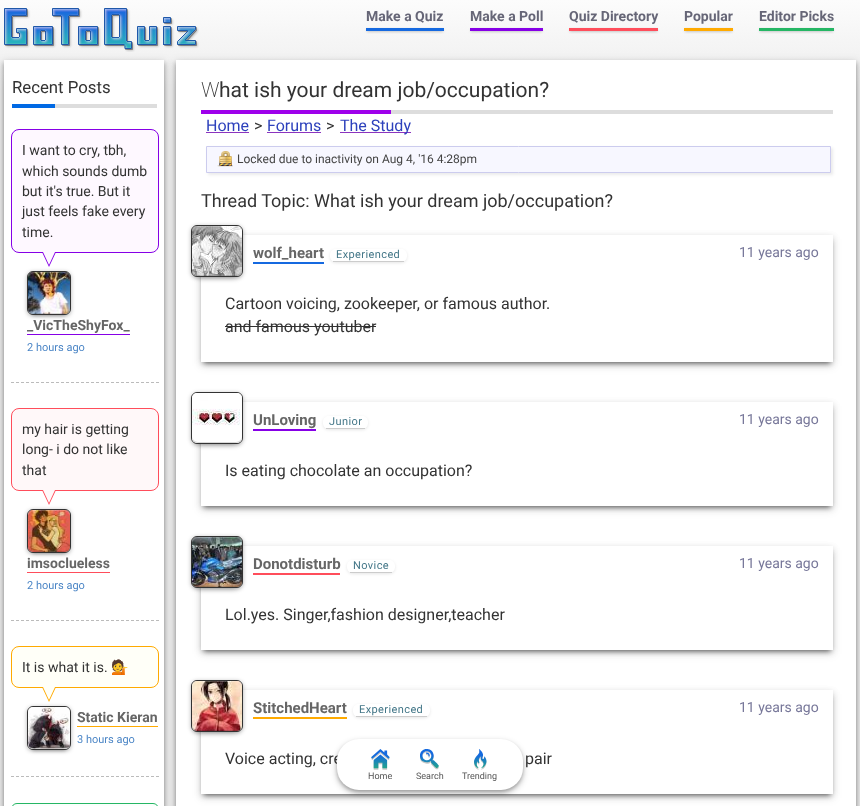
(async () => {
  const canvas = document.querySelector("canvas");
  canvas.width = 860;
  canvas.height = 806;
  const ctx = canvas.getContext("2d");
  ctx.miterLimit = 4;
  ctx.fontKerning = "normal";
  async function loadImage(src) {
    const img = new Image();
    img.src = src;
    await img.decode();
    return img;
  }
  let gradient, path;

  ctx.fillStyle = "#ffffff";
  ctx.fillRect(0, 0, 860, 806);
  gradient = ctx.createLinearGradient(430, 0, 430, 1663);
  gradient.addColorStop(0, "#fcfcfc");
  gradient.addColorStop(0.05, "#eeeeee");
  ctx.fillStyle = gradient;
  ctx.fillRect(0, 0, 860, 806);
  ctx.fillStyle = "rgba(0, 0, 0, 0.3)";
  ctx.filter = "blur(2px)";
  ctx.beginPath();
  ctx.rect(176, 63, 680, 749);
  ctx.fill();
  ctx.filter = "none";
  ctx.fillStyle = "rgba(0, 0, 0, 0.16)";
  ctx.filter = "blur(4.5px)";
  ctx.beginPath();
  ctx.rect(175, 62, 682, 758);
  ctx.fill();
  ctx.filter = "none";
  ctx.fillStyle = "rgba(0, 0, 0, 0.4)";
  ctx.filter = "blur(6.5px)";
  ctx.beginPath();
  ctx.rect(185, 84, 662, 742);
  ctx.fill();
  ctx.filter = "none";
  ctx.fillStyle = "#ffffff";
  ctx.fillRect(176, 60, 680, 746);
  ctx.fillStyle = "rgba(0, 0, 0, 0.16)";
  ctx.filter = "blur(4.5px)";
  ctx.beginPath();
  ctx.rect(3, 62, 162, 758);
  ctx.fill();
  ctx.filter = "none";
  ctx.drawImage(await loadImage("img/1.png"), 4, 8, 195, 44);
  ctx.fillStyle = "#666666";
  ctx.filter = "blur(1.5px)";
  ctx.beginPath();
  ctx.rect(367, 30, 76, 1);
  ctx.fill();
  ctx.filter = "none";
  ctx.fillStyle = "#1569e0";
  ctx.fillRect(366, 28, 78, 3);
  ctx.fillStyle = "#666666";
  ctx.filter = "blur(1.5px)";
  ctx.beginPath();
  ctx.rect(471, 30, 71, 1);
  ctx.fill();
  ctx.filter = "none";
  ctx.fillStyle = "#8600e6";
  ctx.fillRect(470, 28, 73, 3);
  ctx.fillStyle = "#666666";
  ctx.filter = "blur(1.5px)";
  ctx.beginPath();
  ctx.rect(570, 30, 87, 1);
  ctx.fill();
  ctx.filter = "none";
  ctx.fillStyle = "#ff4d5b";
  ctx.fillRect(569, 28, 89, 3);
  ctx.fillStyle = "#666666";
  ctx.filter = "blur(1.5px)";
  ctx.beginPath();
  ctx.rect(685, 30, 47, 1);
  ctx.fill();
  ctx.filter = "none";
  ctx.fillStyle = "#ffaa00";
  ctx.fillRect(684, 28, 49, 3);
  ctx.fillStyle = "#666666";
  ctx.filter = "blur(1.5px)";
  ctx.beginPath();
  ctx.rect(760, 30, 73, 1);
  ctx.fill();
  ctx.filter = "none";
  ctx.fillStyle = "#25b664";
  ctx.fillRect(759, 28, 75, 3);
  ctx.fillStyle = "rgba(0, 0, 0, 0.3)";
  ctx.filter = "blur(2px)";
  ctx.beginPath();
  ctx.rect(4, 63, 160, 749);
  ctx.fill();
  ctx.filter = "none";
  ctx.fillStyle = "rgba(0, 0, 0, 0.4)";
  ctx.filter = "blur(6.5px)";
  ctx.beginPath();
  ctx.rect(13, 84, 142, 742);
  ctx.fill();
  ctx.filter = "none";
  for (const [x, y, w, h, color] of [
    [4, 60, 160, 746, "#ffffff"],
    [55, 104, 102, 4, "#dddddd"],
    [12, 104, 43, 4, "#0069e4"],
  ]) {
    ctx.fillStyle = color;
    ctx.fillRect(x, y, w, h);
  }
  path = new Path2D("M11 382.5H159");
  ctx.strokeStyle = "#bbbbbb";
  ctx.setLineDash([3, 2]);
  ctx.stroke(path);
  ctx.fillStyle = "#fef8ff";
  ctx.beginPath();
  ctx.roundRect(11.5, 129.5, 147, 123, 7.5);
  ctx.fill();
  ctx.strokeStyle = "#8600e6";
  ctx.setLineDash([]);
  ctx.stroke();
  ctx.fillStyle = "#8600e6";
  path = new Path2D("M42 252H56L49 267Z");
  ctx.fill(path);
  ctx.fillStyle = "#fef8ff";
  path = new Path2D("M43 252H55L49 265Z");
  ctx.fill(path);
  ctx.fillStyle = "rgba(0, 0, 0, 0.3)";
  ctx.filter = "blur(2px)";
  ctx.beginPath();
  ctx.roundRect(27, 272, 44, 44, 6);
  ctx.fill();
  ctx.filter = "none";
  ctx.fillStyle = "rgba(0, 0, 0, 0.2)";
  ctx.filter = "blur(1.5px)";
  ctx.beginPath();
  ctx.rect(33, 284, 32, 32);
  ctx.fill();
  ctx.filter = "none";
  ctx.beginPath();
  ctx.roundRect(27.5, 271.5, 43, 43, 5.5);
  ctx.strokeStyle = "#333333";
  ctx.stroke();
  ctx.drawImage(await loadImage("img/2.png"), 28, 272, 42, 42);
  ctx.fillStyle = "rgba(0, 0, 0, 0.15)";
  path = new Path2D("M28 307C28 314 33 314 39 314H59C65 314 70 314 70 307C70 310 67 313 64 313H34C31 313 28 310 28 307Z");
  ctx.fill(path);
  ctx.fillStyle = "rgba(255, 255, 255, 0.24)";
  path = new Path2D("M34 273C31 273 28 276 28 279C28 272 33 272 39 272H59C65 272 70 272 70 279C70 276 67 273 64 273Z");
  ctx.fill(path);
  ctx.fillStyle = "#8600e6";
  ctx.fillRect(27, 334, 103, 1);
  path = new Path2D("M11 620.5H159");
  ctx.strokeStyle = "#bbbbbb";
  ctx.setLineDash([3, 2]);
  ctx.stroke(path);
  ctx.fillStyle = "#fff8f9";
  ctx.beginPath();
  ctx.roundRect(11.5, 408.5, 147, 82, 7.5);
  ctx.fill();
  ctx.strokeStyle = "#ff4d5b";
  ctx.setLineDash([]);
  ctx.stroke();
  ctx.fillStyle = "#ff4d5b";
  path = new Path2D("M42 490H56L49 505Z");
  ctx.fill(path);
  ctx.fillStyle = "#fff8f9";
  path = new Path2D("M43 490H55L49 503Z");
  ctx.fill(path);
  ctx.fillStyle = "rgba(0, 0, 0, 0.3)";
  ctx.filter = "blur(2px)";
  ctx.beginPath();
  ctx.roundRect(27, 510, 44, 44, 6);
  ctx.fill();
  ctx.filter = "none";
  ctx.fillStyle = "rgba(0, 0, 0, 0.2)";
  ctx.filter = "blur(1.5px)";
  ctx.beginPath();
  ctx.rect(33, 522, 32, 32);
  ctx.fill();
  ctx.filter = "none";
  ctx.beginPath();
  ctx.roundRect(27.5, 509.5, 43, 43, 5.5);
  ctx.strokeStyle = "#333333";
  ctx.stroke();
  ctx.drawImage(await loadImage("img/3.png"), 28, 510, 42, 42);
  ctx.fillStyle = "rgba(0, 0, 0, 0.15)";
  path = new Path2D("M28 545C28 552 33 552 39 552H59C65 552 70 552 70 545C70 548 67 551 64 551H34C31 551 28 548 28 545Z");
  ctx.fill(path);
  ctx.fillStyle = "rgba(255, 255, 255, 0.24)";
  path = new Path2D("M34 511C31 511 28 514 28 517C28 510 33 510 39 510H59C65 510 70 510 70 517C70 514 67 511 64 511Z");
  ctx.fill(path);
  ctx.fillStyle = "#ff4d5b";
  ctx.fillRect(27, 572, 83, 1);
  path = new Path2D("M11 776.5H159");
  ctx.strokeStyle = "#bbbbbb";
  ctx.setLineDash([3, 2]);
  ctx.stroke(path);
  ctx.fillStyle = "#fffff8";
  ctx.beginPath();
  ctx.roundRect(11.5, 646.5, 147, 41, 7.5);
  ctx.fill();
  ctx.strokeStyle = "#ffaa00";
  ctx.setLineDash([]);
  ctx.stroke();
  ctx.fillStyle = "#ffaa00";
  path = new Path2D("M42 687H56L49 702Z");
  ctx.fill(path);
  ctx.fillStyle = "#fffff8";
  path = new Path2D("M43 687H55L49 700Z");
  ctx.fill(path);
  ctx.fillStyle = "#ffaa00";
  ctx.fillRect(77, 726, 81, 1);
  ctx.fillStyle = "rgba(0, 0, 0, 0.3)";
  ctx.filter = "blur(2px)";
  ctx.beginPath();
  ctx.roundRect(27, 707, 44, 44, 6);
  ctx.fill();
  ctx.filter = "none";
  ctx.fillStyle = "rgba(0, 0, 0, 0.2)";
  ctx.filter = "blur(1.5px)";
  ctx.beginPath();
  ctx.rect(33, 719, 32, 32);
  ctx.fill();
  ctx.filter = "none";
  ctx.beginPath();
  ctx.roundRect(27.5, 706.5, 43, 43, 5.5);
  ctx.strokeStyle = "#333333";
  ctx.stroke();
  ctx.drawImage(await loadImage("img/4.png"), 28, 707, 42, 42);
  ctx.fillStyle = "rgba(0, 0, 0, 0.15)";
  path = new Path2D("M28 742C28 749 33 749 39 749H59C65 749 70 749 70 742C70 745 67 748 64 748H34C31 748 28 745 28 742Z");
  ctx.fill(path);
  ctx.fillStyle = "rgba(255, 255, 255, 0.24)";
  path = new Path2D("M34 708C31 708 28 711 28 714C28 707 33 707 39 707H59C65 707 70 707 70 714C70 711 67 708 64 708Z");
  ctx.fill(path);
  ctx.fillStyle = "#fafffc";
  ctx.beginPath();
  ctx.roundRect(11.5, 803.5, 147, 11, 7.5);
  ctx.fill();
  ctx.strokeStyle = "#25b664";
  ctx.stroke();
  for (const [x, y, w, h, color] of [
    [391, 110, 442, 4, "#dddddd"],
    [201, 110, 190, 4, "#9e00eb"],
    [206, 132, 43, 1, "#8b34bf"],
    [267, 132, 54, 1, "#8b34bf"],
    [340, 132, 71, 1, "#8b34bf"],
  ]) {
    ctx.fillStyle = color;
    ctx.fillRect(x, y, w, h);
  }
  ctx.fillStyle = "rgba(0, 0, 0, 0.08)";
  ctx.filter = "blur(1.5px)";
  ctx.beginPath();
  ctx.rect(208, 148, 625, 27);
  ctx.fill();
  ctx.filter = "none";
  ctx.fillStyle = "#f7f7ff";
  ctx.beginPath();
  ctx.rect(206.5, 146.5, 624, 26);
  ctx.fill();
  ctx.strokeStyle = "#ccccee";
  ctx.stroke();
  ctx.drawImage(await loadImage("img/5.png"), 217, 151, 16, 16);
  ctx.save();
  path = new Path2D("M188 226H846V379H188ZM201 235H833V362H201Z");
  ctx.clip(path, "evenodd");
  ctx.fillStyle = "rgba(0, 0, 0, 0.12)";
  ctx.filter = "blur(4px)";
  ctx.beginPath();
  ctx.rect(201, 239, 632, 127);
  ctx.fill();
  ctx.filter = "none";
  ctx.restore();
  ctx.save();
  path = new Path2D("M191 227H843V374H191ZM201 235H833V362H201Z");
  ctx.clip(path, "evenodd");
  ctx.fillStyle = "rgba(0, 0, 0, 0.13)";
  ctx.filter = "blur(3px)";
  ctx.beginPath();
  ctx.rect(201, 237, 632, 127);
  ctx.fill();
  ctx.filter = "none";
  ctx.restore();
  ctx.save();
  path = new Path2D("M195 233H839V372H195ZM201 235H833V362H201Z");
  ctx.clip(path, "evenodd");
  ctx.fillStyle = "rgba(0, 0, 0, 0.55)";
  ctx.filter = "blur(2.5px)";
  ctx.beginPath();
  ctx.rect(204, 242, 626, 121);
  ctx.fill();
  ctx.filter = "none";
  ctx.restore();
  ctx.fillStyle = "rgba(0, 0, 0, 0.3)";
  ctx.filter = "blur(2px)";
  ctx.beginPath();
  ctx.roundRect(191, 226, 52, 52, 6);
  ctx.fill();
  ctx.filter = "none";
  ctx.filter = "blur(3px)";
  ctx.beginPath();
  ctx.rect(198, 239, 38, 38);
  ctx.fill();
  ctx.filter = "none";
  ctx.beginPath();
  ctx.roundRect(191.5, 225.5, 51, 51, 5.5);
  ctx.strokeStyle = "#333333";
  ctx.stroke();
  ctx.drawImage(await loadImage("img/6.png"), 192, 226, 50, 50);
  ctx.fillStyle = "rgba(0, 0, 0, 0.15)";
  path = new Path2D("M192 269C192 277 198 276 204 276H230C236 276 242 277 242 269C242 272 239 275 236 275H198C195 275 192 272 192 269Z");
  ctx.fill(path);
  ctx.fillStyle = "rgba(255, 255, 255, 0.24)";
  path = new Path2D("M198 227C195 227 192 230 192 233C192 225 198 226 204 226H230C236 226 242 225 242 233C242 230 239 227 236 227Z");
  ctx.fill(path);
  ctx.fillStyle = "#1569e0";
  ctx.fillRect(253, 262, 71, 2);
  ctx.save();
  path = new Path2D("M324 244H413V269H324ZM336 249H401C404.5 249 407 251.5 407 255V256C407 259.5 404.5 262 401 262H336C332.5 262 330 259.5 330 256V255C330 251.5 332.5 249 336 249Z");
  ctx.clip(path, "evenodd");
  ctx.fillStyle = "rgba(0, 0, 0, 0.1)";
  ctx.filter = "blur(1.5px)";
  ctx.beginPath();
  ctx.roundRect(330, 250, 77, 13, 6);
  ctx.fill();
  ctx.filter = "none";
  ctx.restore();
  ctx.fillStyle = "#cccccc";
  ctx.fillRect(333, 261, 71, 1);
  ctx.fillStyle = "#333333";
  ctx.fillRect(225, 326, 151, 1);
  ctx.save();
  path = new Path2D("M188 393H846V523H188ZM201 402H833V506H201Z");
  ctx.clip(path, "evenodd");
  ctx.fillStyle = "rgba(0, 0, 0, 0.12)";
  ctx.filter = "blur(4px)";
  ctx.beginPath();
  ctx.rect(201, 406, 632, 104);
  ctx.fill();
  ctx.filter = "none";
  ctx.restore();
  ctx.save();
  path = new Path2D("M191 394H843V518H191ZM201 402H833V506H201Z");
  ctx.clip(path, "evenodd");
  ctx.fillStyle = "rgba(0, 0, 0, 0.13)";
  ctx.filter = "blur(3px)";
  ctx.beginPath();
  ctx.rect(201, 404, 632, 104);
  ctx.fill();
  ctx.filter = "none";
  ctx.restore();
  ctx.save();
  path = new Path2D("M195 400H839V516H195ZM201 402H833V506H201Z");
  ctx.clip(path, "evenodd");
  ctx.fillStyle = "rgba(0, 0, 0, 0.55)";
  ctx.filter = "blur(2.5px)";
  ctx.beginPath();
  ctx.rect(204, 409, 626, 98);
  ctx.fill();
  ctx.filter = "none";
  ctx.restore();
  ctx.fillStyle = "rgba(0, 0, 0, 0.3)";
  ctx.filter = "blur(2px)";
  ctx.beginPath();
  ctx.roundRect(191, 393, 52, 52, 6);
  ctx.fill();
  ctx.filter = "none";
  ctx.filter = "blur(3px)";
  ctx.beginPath();
  ctx.rect(198, 406, 38, 38);
  ctx.fill();
  ctx.filter = "none";
  ctx.beginPath();
  ctx.roundRect(191.5, 392.5, 51, 51, 5.5);
  ctx.stroke();
  ctx.drawImage(await loadImage("img/7.png"), 192, 393, 50, 50);
  ctx.fillStyle = "#d9d9d9";
  path = new Path2D("M192 436C192 444 198 443 204 443H230C236 443 242 444 242 436C242 439 239 442 236 442H198C195 442 192 439 192 436Z");
  ctx.fill(path);
  ctx.fillStyle = "#ffffff";
  path = new Path2D("M198 394C195 394 192 397 192 400C192 392 198 393 204 393H230C236 393 242 392 242 400C242 397 239 394 236 394Z");
  ctx.fill(path);
  ctx.fillStyle = "#8600e6";
  ctx.fillRect(253, 429, 63, 2);
  ctx.save();
  path = new Path2D("M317 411H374V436H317ZM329 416H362C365.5 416 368 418.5 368 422V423C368 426.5 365.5 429 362 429H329C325.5 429 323 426.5 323 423V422C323 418.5 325.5 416 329 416Z");
  ctx.clip(path, "evenodd");
  ctx.fillStyle = "rgba(0, 0, 0, 0.1)";
  ctx.filter = "blur(1.5px)";
  ctx.beginPath();
  ctx.roundRect(323, 417, 45, 13, 6);
  ctx.fill();
  ctx.filter = "none";
  ctx.restore();
  ctx.fillStyle = "#cccccc";
  ctx.fillRect(326, 428, 39, 1);
  ctx.save();
  path = new Path2D("M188 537H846V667H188ZM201 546H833V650H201Z");
  ctx.clip(path, "evenodd");
  ctx.fillStyle = "rgba(0, 0, 0, 0.12)";
  ctx.filter = "blur(4px)";
  ctx.beginPath();
  ctx.rect(201, 550, 632, 104);
  ctx.fill();
  ctx.filter = "none";
  ctx.restore();
  ctx.save();
  path = new Path2D("M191 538H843V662H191ZM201 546H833V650H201Z");
  ctx.clip(path, "evenodd");
  ctx.fillStyle = "rgba(0, 0, 0, 0.13)";
  ctx.filter = "blur(3px)";
  ctx.beginPath();
  ctx.rect(201, 548, 632, 104);
  ctx.fill();
  ctx.filter = "none";
  ctx.restore();
  ctx.save();
  path = new Path2D("M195 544H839V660H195ZM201 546H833V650H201Z");
  ctx.clip(path, "evenodd");
  ctx.fillStyle = "rgba(0, 0, 0, 0.55)";
  ctx.filter = "blur(2.5px)";
  ctx.beginPath();
  ctx.rect(204, 553, 626, 98);
  ctx.fill();
  ctx.filter = "none";
  ctx.restore();
  ctx.fillStyle = "rgba(0, 0, 0, 0.3)";
  ctx.filter = "blur(2px)";
  ctx.beginPath();
  ctx.roundRect(191, 537, 52, 52, 6);
  ctx.fill();
  ctx.filter = "none";
  ctx.filter = "blur(3px)";
  ctx.beginPath();
  ctx.rect(198, 550, 38, 38);
  ctx.fill();
  ctx.filter = "none";
  ctx.beginPath();
  ctx.roundRect(191.5, 536.5, 51, 51, 5.5);
  ctx.stroke();
  ctx.drawImage(await loadImage("img/8.png"), 192, 537, 50, 50);
  ctx.fillStyle = "rgba(0, 0, 0, 0.15)";
  path = new Path2D("M192 580C192 588 198 587 204 587H230C236 587 242 588 242 580C242 583 239 586 236 586H198C195 586 192 583 192 580Z");
  ctx.fill(path);
  ctx.fillStyle = "rgba(255, 255, 255, 0.24)";
  path = new Path2D("M198 538C195 538 192 541 192 544C192 536 198 537 204 537H230C236 537 242 536 242 544C242 541 239 538 236 538Z");
  ctx.fill(path);
  ctx.fillStyle = "#ff4d5b";
  ctx.fillRect(253, 573, 87, 2);
  ctx.save();
  path = new Path2D("M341 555H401V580H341ZM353 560H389C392.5 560 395 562.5 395 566V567C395 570.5 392.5 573 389 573H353C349.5 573 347 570.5 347 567V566C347 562.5 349.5 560 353 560Z");
  ctx.clip(path, "evenodd");
  ctx.fillStyle = "rgba(0, 0, 0, 0.1)";
  ctx.filter = "blur(1.5px)";
  ctx.beginPath();
  ctx.roundRect(347, 561, 48, 13, 6);
  ctx.fill();
  ctx.filter = "none";
  ctx.restore();
  ctx.fillStyle = "#cccccc";
  ctx.fillRect(350, 572, 42, 1);
  ctx.save();
  path = new Path2D("M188 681H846V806H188ZM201 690H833V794H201Z");
  ctx.clip(path, "evenodd");
  ctx.fillStyle = "rgba(0, 0, 0, 0.12)";
  ctx.filter = "blur(4px)";
  ctx.beginPath();
  ctx.rect(201, 694, 632, 104);
  ctx.fill();
  ctx.filter = "none";
  ctx.restore();
  ctx.save();
  path = new Path2D("M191 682H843V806H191ZM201 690H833V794H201Z");
  ctx.clip(path, "evenodd");
  ctx.fillStyle = "rgba(0, 0, 0, 0.13)";
  ctx.filter = "blur(3px)";
  ctx.beginPath();
  ctx.rect(201, 692, 632, 104);
  ctx.fill();
  ctx.filter = "none";
  ctx.restore();
  ctx.save();
  path = new Path2D("M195 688H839V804H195ZM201 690H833V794H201Z");
  ctx.clip(path, "evenodd");
  ctx.fillStyle = "rgba(0, 0, 0, 0.55)";
  ctx.filter = "blur(2.5px)";
  ctx.beginPath();
  ctx.rect(204, 697, 626, 98);
  ctx.fill();
  ctx.filter = "none";
  ctx.restore();
  ctx.fillStyle = "rgba(0, 0, 0, 0.3)";
  ctx.filter = "blur(2px)";
  ctx.beginPath();
  ctx.roundRect(191, 681, 52, 52, 6);
  ctx.fill();
  ctx.filter = "none";
  ctx.filter = "blur(3px)";
  ctx.beginPath();
  ctx.rect(198, 694, 38, 38);
  ctx.fill();
  ctx.filter = "none";
  ctx.beginPath();
  ctx.roundRect(191.5, 680.5, 51, 51, 5.5);
  ctx.stroke();
  ctx.drawImage(await loadImage("img/9.png"), 192, 681, 50, 50);
  ctx.fillStyle = "rgba(0, 0, 0, 0.15)";
  path = new Path2D("M192 724C192 732 198 731 204 731H230C236 731 242 732 242 724C242 727 239 730 236 730H198C195 730 192 727 192 724Z");
  ctx.fill(path);
  ctx.fillStyle = "rgba(255, 255, 255, 0.24)";
  path = new Path2D("M198 682C195 682 192 685 192 688C192 680 198 681 204 681H230C236 681 242 680 242 688C242 685 239 682 236 682Z");
  ctx.fill(path);
  ctx.fillStyle = "#ffaa00";
  ctx.fillRect(253, 717, 94, 2);
  ctx.save();
  path = new Path2D("M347 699H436V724H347ZM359 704H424C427.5 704 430 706.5 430 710V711C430 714.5 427.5 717 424 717H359C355.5 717 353 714.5 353 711V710C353 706.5 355.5 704 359 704Z");
  ctx.clip(path, "evenodd");
  ctx.fillStyle = "rgba(0, 0, 0, 0.1)";
  ctx.filter = "blur(1.5px)";
  ctx.beginPath();
  ctx.roundRect(353, 705, 77, 13, 6);
  ctx.fill();
  ctx.filter = "none";
  ctx.restore();
  ctx.fillStyle = "#cccccc";
  ctx.fillRect(356, 716, 71, 1);
  ctx.fillStyle = "rgba(0, 0, 0, 0.16)";
  ctx.filter = "blur(1.5px)";
  ctx.beginPath();
  ctx.roundRect(337, 741, 186, 51, 22);
  ctx.fill();
  ctx.filter = "none";
  ctx.fillStyle = "rgba(0, 0, 0, 0.28)";
  ctx.filter = "blur(3px)";
  ctx.beginPath();
  ctx.roundRect(337, 742, 186, 51, 22);
  ctx.fill();
  ctx.filter = "none";
  ctx.font = "bold 14px Roboto";
  ctx.fillStyle = "#666677";
  for (const [text, x, y] of [
    ["Make a Quiz", 366, 21],
    ["Make a Poll", 470, 21],
    ["Quiz Directory", 569, 21],
    ["Popular", 684, 21],
    ["Editor Picks", 759, 21],
  ]) {
    ctx.fillText(text, x, y);
  }
  ctx.font = "16.75px Roboto";
  ctx.fillStyle = "#333333";
  ctx.fillText("Recent Posts", 12, 93);
  ctx.font = "14px Roboto";
  for (const [text, x, y] of [
    ["I want to cry, tbh,", 22, 155],
    ["which sounds dumb", 22, 176],
    ["but it's true. But it", 22, 196],
    ["just feels fake every", 22, 216],
    ["time.", 22, 237],
  ]) {
    ctx.fillText(text, x, y);
  }
  ctx.font = "bold 14px Roboto";
  ctx.fillStyle = "#666666";
  ctx.fillText("_VicTheShyFox_", 27, 330);
  ctx.font = "11px Roboto";
  ctx.fillStyle = "#4c86c6";
  ctx.fillText("2 hours ago", 27, 351);
  ctx.font = "14px Roboto";
  ctx.fillStyle = "#333333";
  for (const [text, x, y] of [
    ["my hair is getting", 22, 434],
    ["long- i do not like", 22, 454],
    ["that", 22, 475],
  ]) {
    ctx.fillText(text, x, y);
  }
  ctx.font = "bold 14px Roboto";
  ctx.fillStyle = "#666666";
  ctx.fillText("imsoclueless", 27, 568);
  ctx.font = "11px Roboto";
  ctx.fillStyle = "#4c86c6";
  ctx.fillText("2 hours ago", 27, 589);
  ctx.font = "14px Roboto";
  ctx.fillStyle = "#333333";
  ctx.fillText("It is what it is.", 22, 672);
  ctx.font = "14px Noto Color Emoji";
  ctx.fillText("💁", 111, 672);
  ctx.font = "bold 14px Roboto";
  ctx.fillStyle = "#666666";
  ctx.fillText("Static Kieran", 77, 722);
  ctx.font = "11px Roboto";
  ctx.fillStyle = "#4c86c6";
  ctx.fillText("3 hours ago", 77, 743);
  ctx.font = "200 21px Noto Sans";
  ctx.fillStyle = "#333333";
  ctx.fillText("W", 201, 97);
  ctx.font = "21px Roboto";
  ctx.fillText("hat ish your dream job/occupation?", 219, 97);
  ctx.font = "16px Roboto";
  ctx.fillStyle = "#2d41bc";
  ctx.fillText("Home", 206, 131);
  ctx.fillStyle = "#333333";
  ctx.fillText(">", 254, 131);
  ctx.fillStyle = "#2d41bc";
  ctx.fillText("Forums", 267, 131);
  ctx.fillStyle = "#333333";
  ctx.fillText(">", 326, 131);
  ctx.fillStyle = "#2d41bc";
  ctx.fillText("The Study", 340, 131);
  ctx.font = "12px Roboto";
  ctx.fillStyle = "#444444";
  ctx.fillText("Locked due to inactivity on Aug 4, '16 4:28pm", 237, 163);
  ctx.font = "18px Roboto";
  ctx.fillStyle = "#333333";
  ctx.fillText("Thread Topic: What ish your dream job/occupation?", 201, 207);
  ctx.font = "bold 15px Roboto";
  ctx.fillStyle = "#666666";
  ctx.fillText("wolf_heart", 253, 258);
  ctx.letterSpacing = "0.4px";
  ctx.font = "11px Roboto";
  ctx.fillStyle = "#447788";
  ctx.fillText("Experienced", 336, 258);
  ctx.letterSpacing = "0px";
  ctx.font = "14px Roboto";
  ctx.fillStyle = "#777799";
  ctx.fillText("11 years ago", 739, 257);
  ctx.font = "16px Roboto";
  ctx.fillStyle = "#333333";
  ctx.fillText("Cartoon voicing, zookeeper, or famous author.", 225, 309);
  ctx.fillText("and famous youtuber", 225, 332);
  ctx.font = "bold 15px Roboto";
  ctx.fillStyle = "#666666";
  ctx.fillText("UnLoving", 253, 425);
  ctx.letterSpacing = "0.4px";
  ctx.font = "11px Roboto";
  ctx.fillStyle = "#447788";
  ctx.fillText("Junior", 329, 425);
  ctx.letterSpacing = "0px";
  ctx.font = "14px Roboto";
  ctx.fillStyle = "#777799";
  ctx.fillText("11 years ago", 739, 424);
  ctx.font = "16px Roboto";
  ctx.fillStyle = "#333333";
  ctx.fillText("Is eating chocolate an occupation?", 225, 476);
  ctx.font = "bold 15px Roboto";
  ctx.fillStyle = "#666666";
  ctx.fillText("Donotdisturb", 253, 569);
  ctx.letterSpacing = "0.4px";
  ctx.font = "11px Roboto";
  ctx.fillStyle = "#447788";
  ctx.fillText("Novice", 353, 569);
  ctx.letterSpacing = "0px";
  ctx.font = "14px Roboto";
  ctx.fillStyle = "#777799";
  ctx.fillText("11 years ago", 739, 568);
  ctx.font = "16px Roboto";
  ctx.fillStyle = "#333333";
  ctx.fillText("Lol.yes. Singer,fashion designer,teacher", 225, 620);
  ctx.font = "bold 15px Roboto";
  ctx.fillStyle = "#666666";
  ctx.fillText("StitchedHeart", 253, 713);
  ctx.letterSpacing = "0.4px";
  ctx.font = "11px Roboto";
  ctx.fillStyle = "#447788";
  ctx.fillText("Experienced", 359, 713);
  ctx.letterSpacing = "0px";
  ctx.font = "14px Roboto";
  ctx.fillStyle = "#777799";
  ctx.fillText("11 years ago", 739, 712);
  ctx.font = "16px Roboto";
  ctx.fillStyle = "#333333";
  ctx.fillText("Voice acting, cre", 225, 764);
  ctx.fillText("pair", 525, 764);
  ctx.fillStyle = "#ffffff";
  ctx.beginPath();
  ctx.roundRect(337, 739, 186, 51, 22);
  ctx.fill();
  ctx.drawImage(await loadImage("img/10.png"), 371, 749, 19, 21);
  ctx.font = "9px Roboto";
  ctx.fillStyle = "#555555";
  ctx.fillText("Home", 368, 779);
  ctx.drawImage(await loadImage("img/11.png"), 420, 749, 19, 21);
  ctx.fillText("Search", 416, 779);
  ctx.drawImage(await loadImage("img/12.png"), 474, 749, 13, 21);
  ctx.fillText("Trending", 462, 779);
})();
